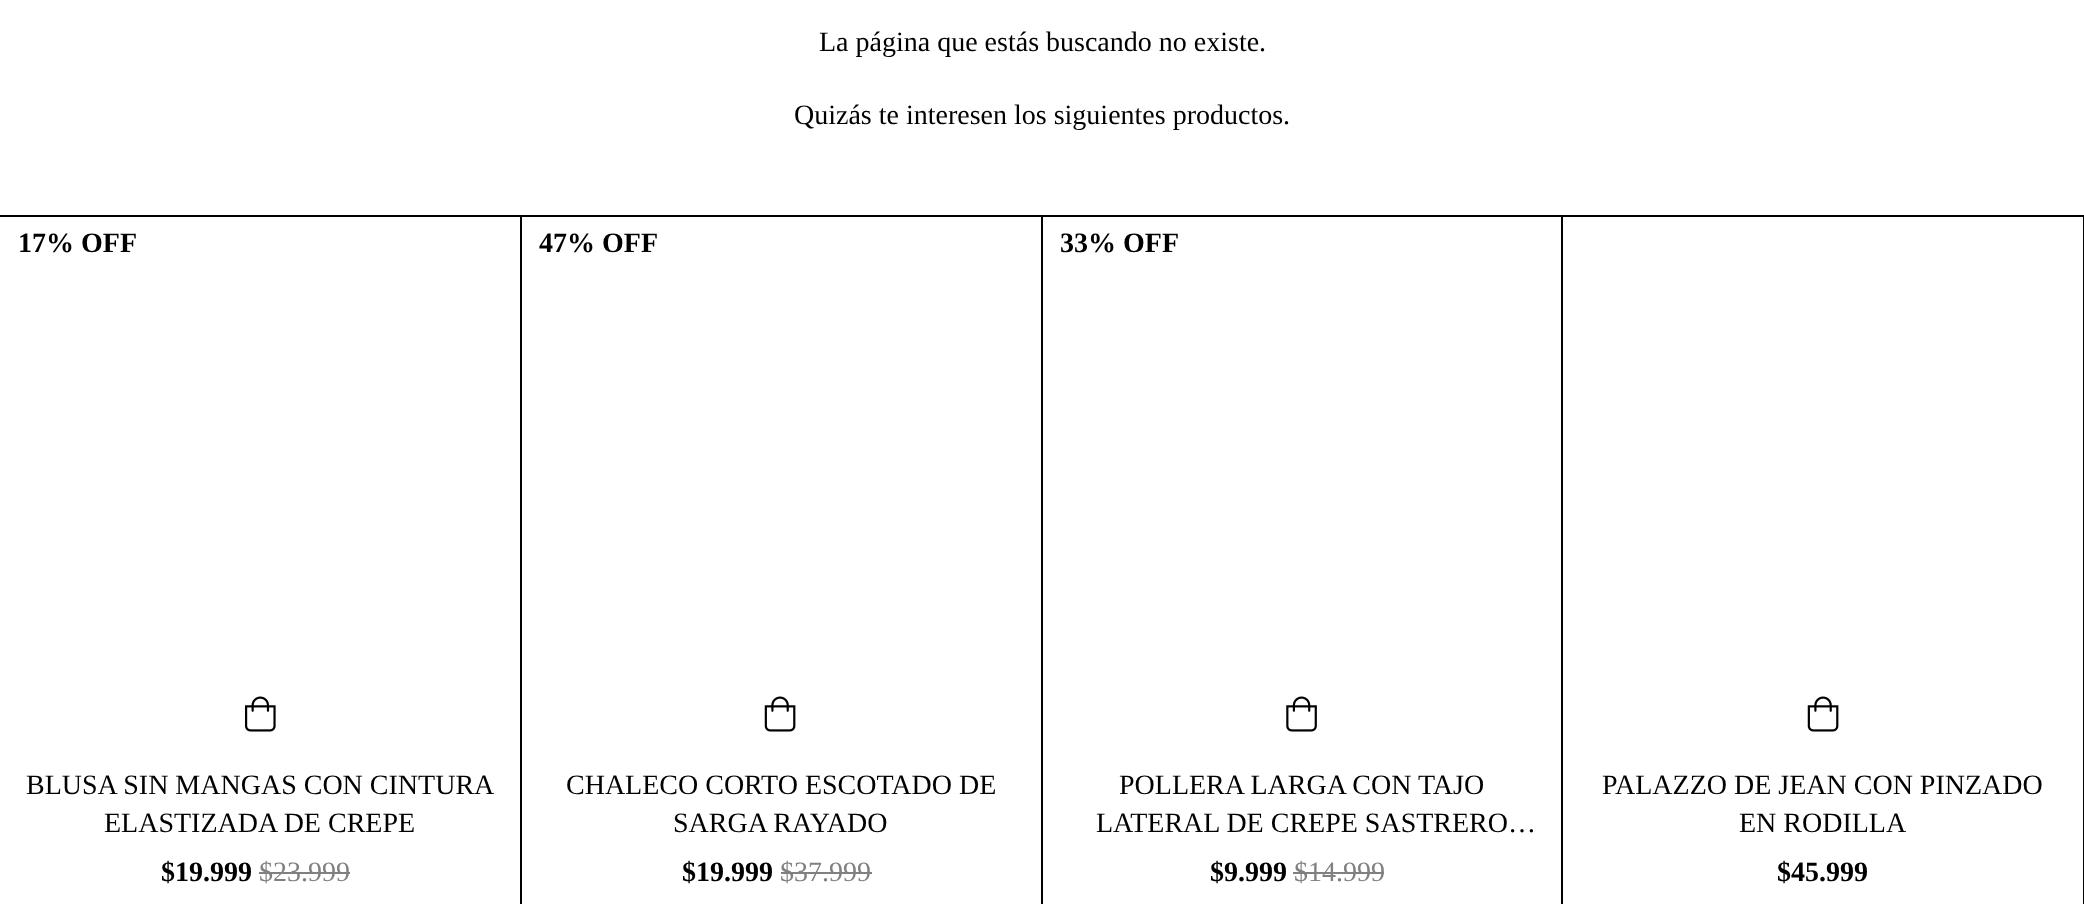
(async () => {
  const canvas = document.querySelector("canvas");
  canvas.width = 2084;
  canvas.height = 904;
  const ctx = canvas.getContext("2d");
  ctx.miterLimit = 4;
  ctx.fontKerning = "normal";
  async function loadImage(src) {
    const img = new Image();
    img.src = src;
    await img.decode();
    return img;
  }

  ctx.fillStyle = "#ffffff";
  ctx.fillRect(0, 0, 2084, 904);
  ctx.fillStyle = "#000000";
  ctx.fillRect(0, 215, 2084, 2);
  ctx.fillRect(520, 215, 2, 689);
  ctx.drawImage(await loadImage("img/1.png"), 245, 696, 31, 36);
  ctx.fillStyle = "#808080";
  ctx.fillRect(259, 872, 91, 2);
  ctx.fillStyle = "#000000";
  ctx.fillRect(1041, 215, 2, 689);
  ctx.drawImage(await loadImage("img/2.png"), 764, 696, 32, 36);
  ctx.fillStyle = "#808080";
  ctx.fillRect(781, 872, 91, 2);
  ctx.fillStyle = "#000000";
  ctx.fillRect(1561, 215, 2, 689);
  ctx.drawImage(await loadImage("img/3.png"), 1286, 696, 31, 36);
  ctx.fillStyle = "#808080";
  ctx.fillRect(1293, 872, 91, 2);
  ctx.fillStyle = "#000000";
  ctx.fillRect(2083, 215, 1, 689);
  ctx.drawImage(await loadImage("img/2.png"), 1807, 696, 32, 36);
  ctx.font = "28px Liberation Serif";
  ctx.fillText("La página que estás buscando no existe.", 819, 51);
  ctx.fillText("Quizás te interesen los siguientes productos.", 794, 124);
  ctx.font = "bold 28px Liberation Serif";
  ctx.fillText("17% OFF", 18, 252);
  ctx.font = "28px Liberation Serif";
  ctx.fillText("BLUSA SIN MANGAS CON CINTURA", 26, 794);
  ctx.fillText("ELASTIZADA DE CREPE", 104, 832);
  ctx.font = "bold 28px Liberation Serif";
  ctx.fillText("$19.999", 161, 881);
  ctx.font = "28px Liberation Serif";
  ctx.fillStyle = "#808080";
  ctx.fillText("$23.999", 259, 881);
  ctx.font = "bold 28px Liberation Serif";
  ctx.fillStyle = "#000000";
  ctx.fillText("47% OFF", 539, 252);
  ctx.font = "28px Liberation Serif";
  ctx.fillText("CHALECO CORTO ESCOTADO DE", 566, 794);
  ctx.fillText("SARGA RAYADO", 673, 832);
  ctx.font = "bold 28px Liberation Serif";
  ctx.fillText("$19.999", 682, 881);
  ctx.font = "28px Liberation Serif";
  ctx.fillStyle = "#808080";
  ctx.fillText("$37.999", 780, 881);
  ctx.font = "bold 28px Liberation Serif";
  ctx.fillStyle = "#000000";
  ctx.fillText("33% OFF", 1060, 252);
  ctx.font = "28px Liberation Serif";
  ctx.fillText("POLLERA LARGA CON TAJO", 1119, 794);
  ctx.fillText("LATERAL DE CREPE SASTRERO…", 1096, 832);
  ctx.font = "bold 28px Liberation Serif";
  ctx.fillText("$9.999", 1210, 881);
  ctx.font = "28px Liberation Serif";
  ctx.fillStyle = "#808080";
  ctx.fillText("$14.999", 1294, 881);
  ctx.fillStyle = "#000000";
  ctx.fillText("PALAZZO DE JEAN CON PINZADO", 1602, 794);
  ctx.fillText("EN RODILLA", 1739, 832);
  ctx.font = "bold 28px Liberation Serif";
  ctx.fillText("$45.999", 1777, 881);
})();
